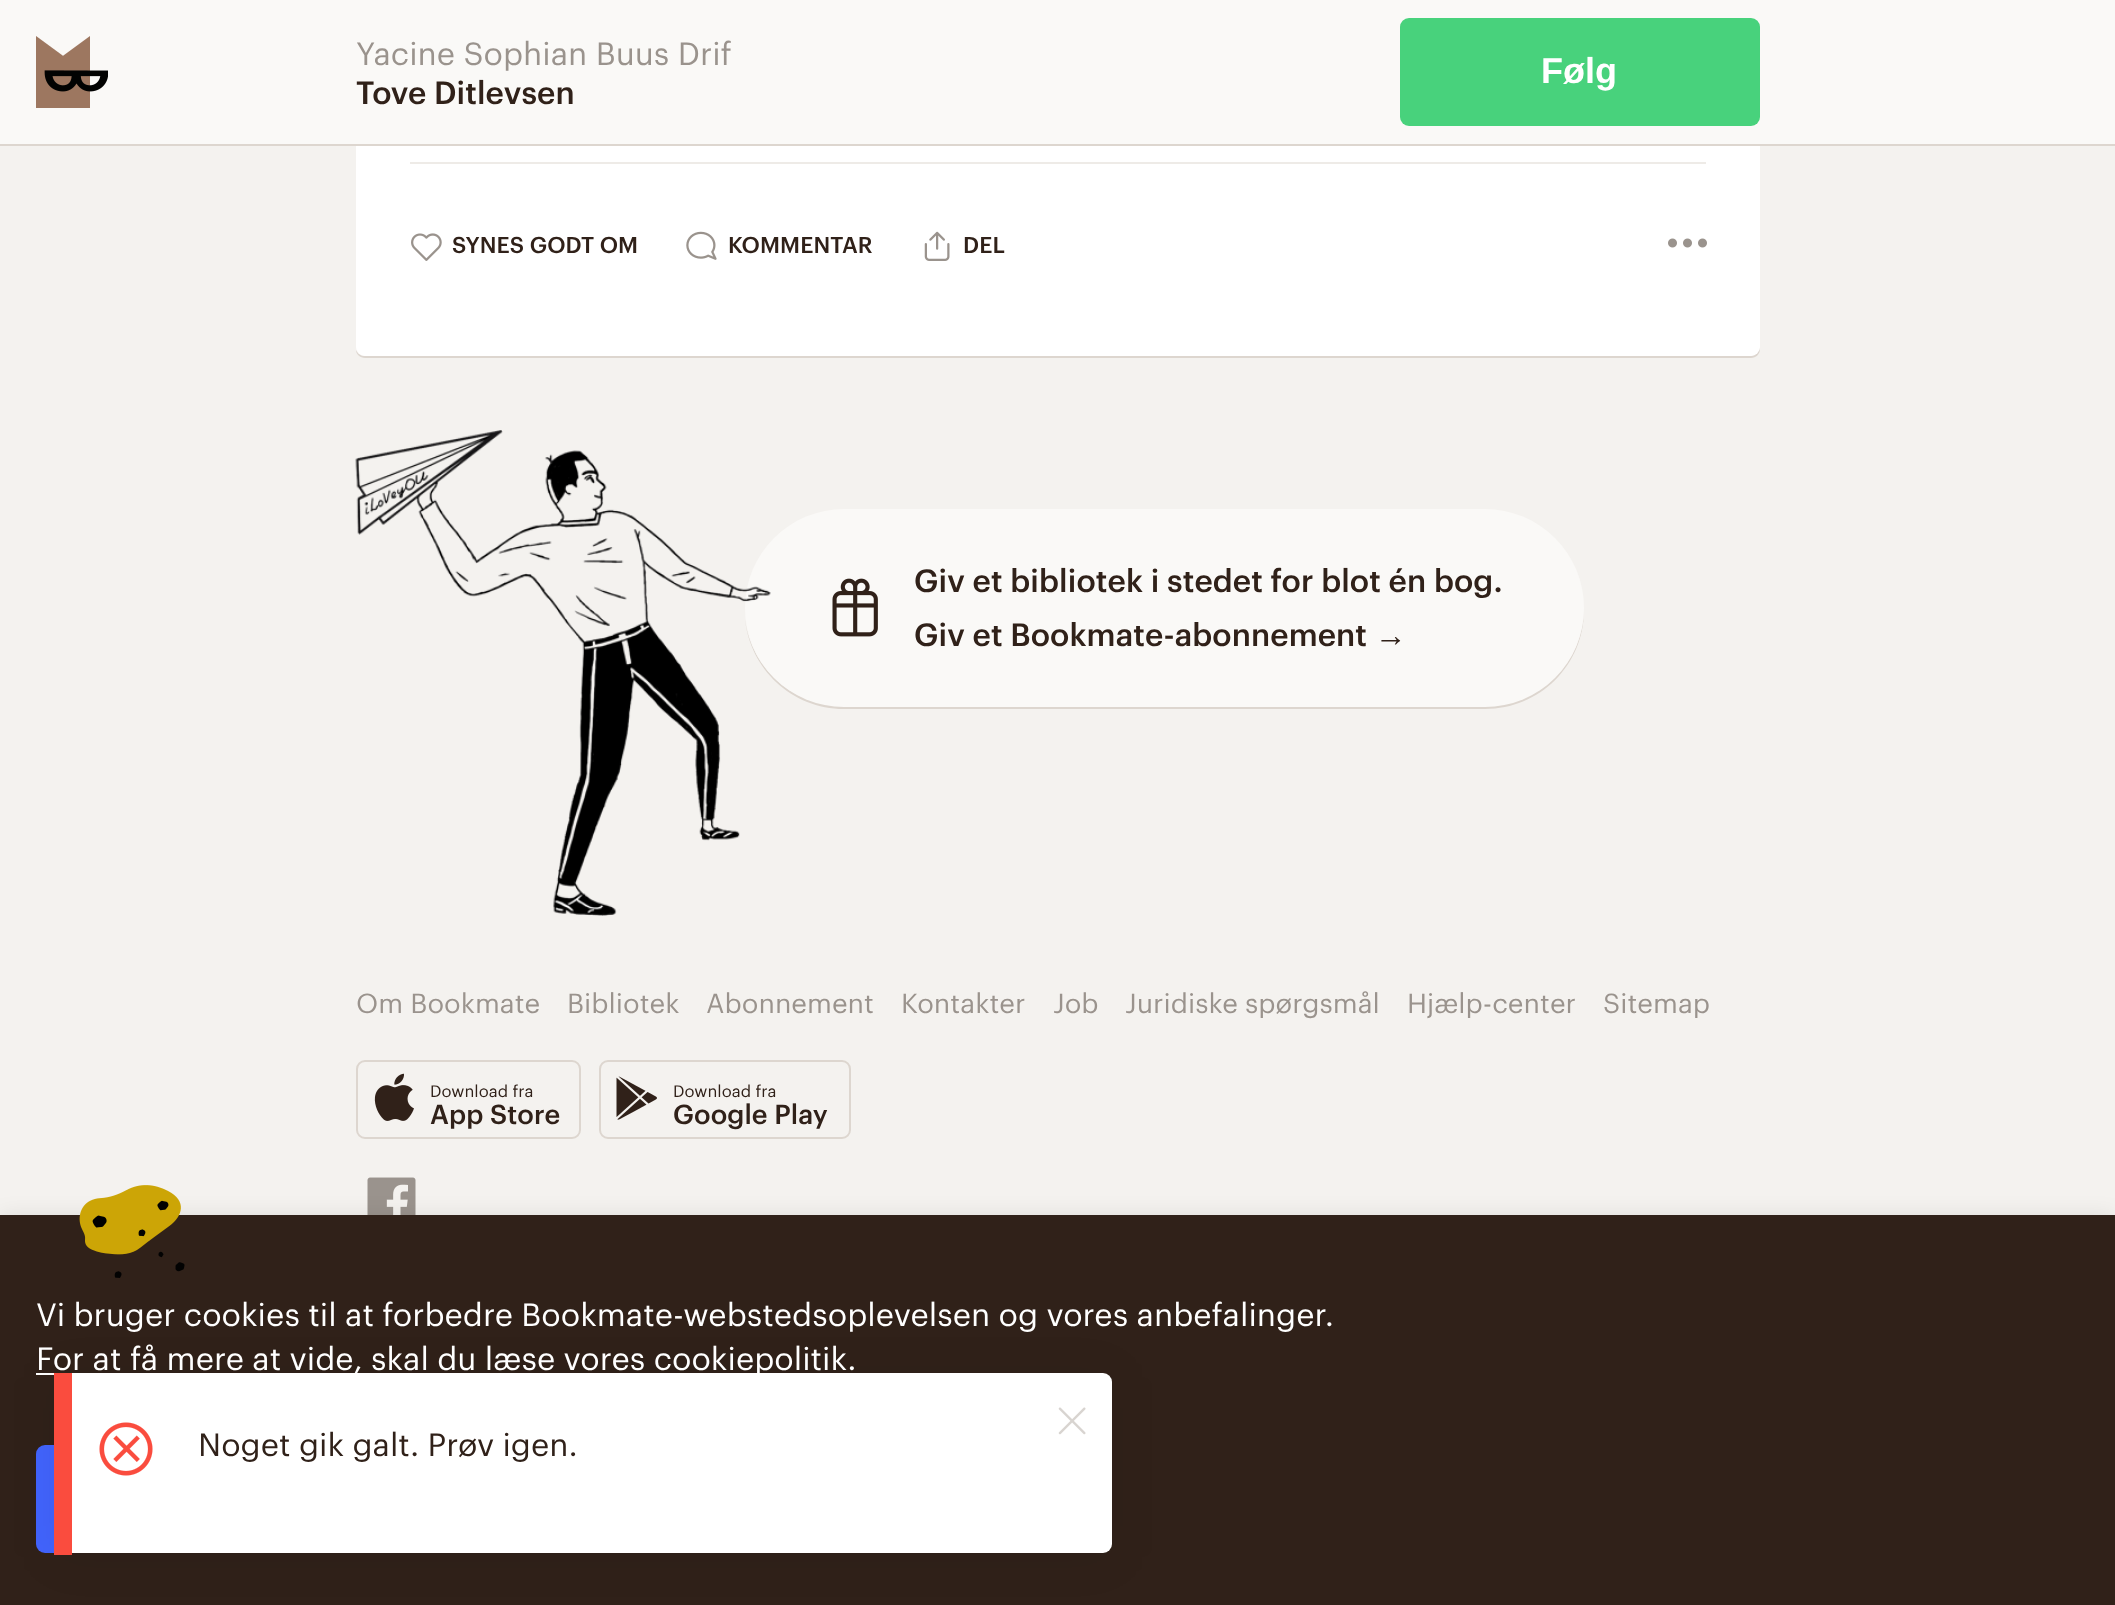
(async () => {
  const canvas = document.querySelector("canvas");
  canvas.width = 2115;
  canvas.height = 1605;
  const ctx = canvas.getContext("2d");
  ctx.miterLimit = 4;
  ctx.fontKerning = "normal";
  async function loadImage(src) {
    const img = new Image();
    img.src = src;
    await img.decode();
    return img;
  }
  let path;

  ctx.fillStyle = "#f4f2ef";
  ctx.fillRect(0, 0, 2115, 1605);
  ctx.fillStyle = "#ddd6cf";
  path = new Path2D("M356 350C356 354 360 358 365 358H1751C1756 358 1760 354 1760 349V-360L1759-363L1760 346C1760 351 1755 356 1750 356H364C361 356 357 353 356 350Z");
  ctx.fill(path);
  ctx.fillStyle = "#ffffff";
  ctx.beginPath();
  ctx.roundRect(356, -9, 1404, 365, 9);
  ctx.fill();
  ctx.fillStyle = "#ddd6cf";
  ctx.fillRect(0, 144, 2115, 2);
  ctx.fillStyle = "#faf9f7";
  ctx.fillRect(0, 0, 2115, 144);
  ctx.drawImage(await loadImage("img/1.png"), 36, 36, 72, 72);
  ctx.fillStyle = "#48d27c";
  ctx.beginPath();
  ctx.roundRect(1400, 18, 360, 108, 9);
  ctx.fill();
  ctx.fillStyle = "#eeebe7";
  ctx.fillRect(410, 162, 1296, 2);
  ctx.drawImage(await loadImage("img/2.png"), 411, 233, 31, 28);
  ctx.drawImage(await loadImage("img/3.png"), 686, 231, 31, 29);
  ctx.drawImage(await loadImage("img/4.png"), 924, 231, 26, 30);
  ctx.drawImage(await loadImage("img/5.png"), 1668, 238, 39, 10);
  ctx.fillStyle = "#ddd6cf";
  path = new Path2D("M745 619C750 669 792 709 844 709H1485C1540 709 1584 665 1584 610V609C1583 663 1539 706 1485 706H844C793 706 751 668 745 619Z");
  ctx.fill(path);
  ctx.fillStyle = "#faf9f7";
  ctx.beginPath();
  ctx.roundRect(745, 509, 839, 198, 99);
  ctx.fill();
  ctx.drawImage(await loadImage("img/6.png"), 355, 430, 416, 486);
  ctx.drawImage(await loadImage("img/7.png"), 832, 578, 46, 59);
  ctx.beginPath();
  ctx.roundRect(357, 1061, 223, 77, 8);
  ctx.strokeStyle = "#ddd6cf";
  ctx.lineWidth = 2;
  ctx.stroke();
  ctx.drawImage(await loadImage("img/8.png"), 374, 1073, 40, 48);
  ctx.beginPath();
  ctx.roundRect(600, 1061, 250, 77, 8);
  ctx.stroke();
  ctx.drawImage(await loadImage("img/9.png"), 616, 1076, 41, 44);
  ctx.drawImage(await loadImage("img/10.png"), 367, 1177, 49, 38);
  ctx.fillStyle = "rgba(0, 0, 0, 0.1)";
  ctx.filter = "blur(11px)";
  ctx.beginPath();
  ctx.rect(0, 1217, 2115, 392);
  ctx.fill();
  ctx.filter = "none";
  ctx.fillStyle = "#302119";
  ctx.fillRect(0, 1215, 2115, 390);
  ctx.drawImage(await loadImage("img/11.png"), 79, 1185, 106, 93);
  ctx.fillStyle = "#ffffff";
  ctx.fillRect(36, 1373, 18, 2);
  ctx.fillStyle = "#4264fd";
  ctx.beginPath();
  ctx.roundRect(36, 1445, 434, 108, 9);
  ctx.fill();
  ctx.fillStyle = "rgba(0, 0, 0, 0.07)";
  ctx.filter = "blur(22.5px)";
  ctx.beginPath();
  ctx.roundRect(54, 1377, 1058, 180, 9);
  ctx.fill();
  ctx.filter = "none";
  ctx.fillStyle = "#ffffff";
  ctx.beginPath();
  ctx.roundRect(54, 1373, 1058, 180, 9);
  ctx.fill();
  ctx.drawImage(await loadImage("img/12.png"), 1058, 1407, 28, 28);
  ctx.drawImage(await loadImage("img/13.png"), 99, 1422, 54, 54);
  ctx.font = "31.5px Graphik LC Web";
  ctx.fillStyle = "#9a938d";
  ctx.fillText("Yacine Sophian Buus Drif", 356, 65);
  ctx.font = "500 31.5px Graphik LC Web";
  ctx.fillStyle = "#302119";
  ctx.fillText("Tove Ditlevsen", 356, 104);
  ctx.font = "bold 36px Liberation Sans";
  ctx.fillStyle = "#ffffff";
  ctx.fillText("Følg", 1541, 83);
  ctx.font = "500 22.5px Graphik LC Web";
  ctx.fillStyle = "#302119";
  for (const [text, x, y] of [
    ["SYNES GODT OM", 452, 253],
    ["KOMMENTAR", 728, 253],
    ["DEL", 963, 253],
  ]) {
    ctx.fillText(text, x, y);
  }
  ctx.font = "500 31.5px Graphik LC Web";
  ctx.fillText("Giv et bibliotek i stedet for blot én bog.", 914, 592);
  ctx.fillText("Giv et Bookmate-abonnement", 914, 646);
  ctx.font = "bold 31.5px Liberation Sans";
  ctx.fillText("→", 1375, 646);
  ctx.font = "27px Graphik LC Web";
  ctx.fillStyle = "#9a938d";
  for (const [text, x, y] of [
    ["Om Bookmate", 356, 1013],
    ["Bibliotek", 567, 1013],
    ["Abonnement", 706, 1013],
    ["Kontakter", 901, 1013],
    ["Job", 1053, 1013],
    ["Juridiske spørgsmål", 1125, 1013],
    ["Hjælp-center", 1407, 1013],
    ["Sitemap", 1603, 1013],
  ]) {
    ctx.fillText(text, x, y);
  }
  ctx.font = "16.25px Graphik LC Web";
  ctx.fillStyle = "#302119";
  ctx.fillText("Download fra", 430, 1097);
  ctx.font = "500 27px Graphik LC Web";
  ctx.fillText("App Store", 430, 1124);
  ctx.font = "16.25px Graphik LC Web";
  ctx.fillText("Download fra", 673, 1097);
  ctx.font = "500 27px Graphik LC Web";
  ctx.fillText("Google Play", 673, 1124);
  ctx.font = "31.5px Graphik LC Web";
  ctx.fillStyle = "#ffffff";
  ctx.fillText("Vi bruger cookies til at forbedre Bookmate-webstedsoplevelsen og vores anbefalinger.", 36, 1326);
  ctx.fillText("For at få mere at vide, skal du læse vores cookiepolitik.", 36, 1370);
  ctx.fillStyle = "#fa4c3e";
  ctx.fillRect(54, 1373, 18, 182);
  ctx.fillStyle = "#302119";
  ctx.fillText("Noget gik galt. Prøv igen.", 198, 1456);
})();
